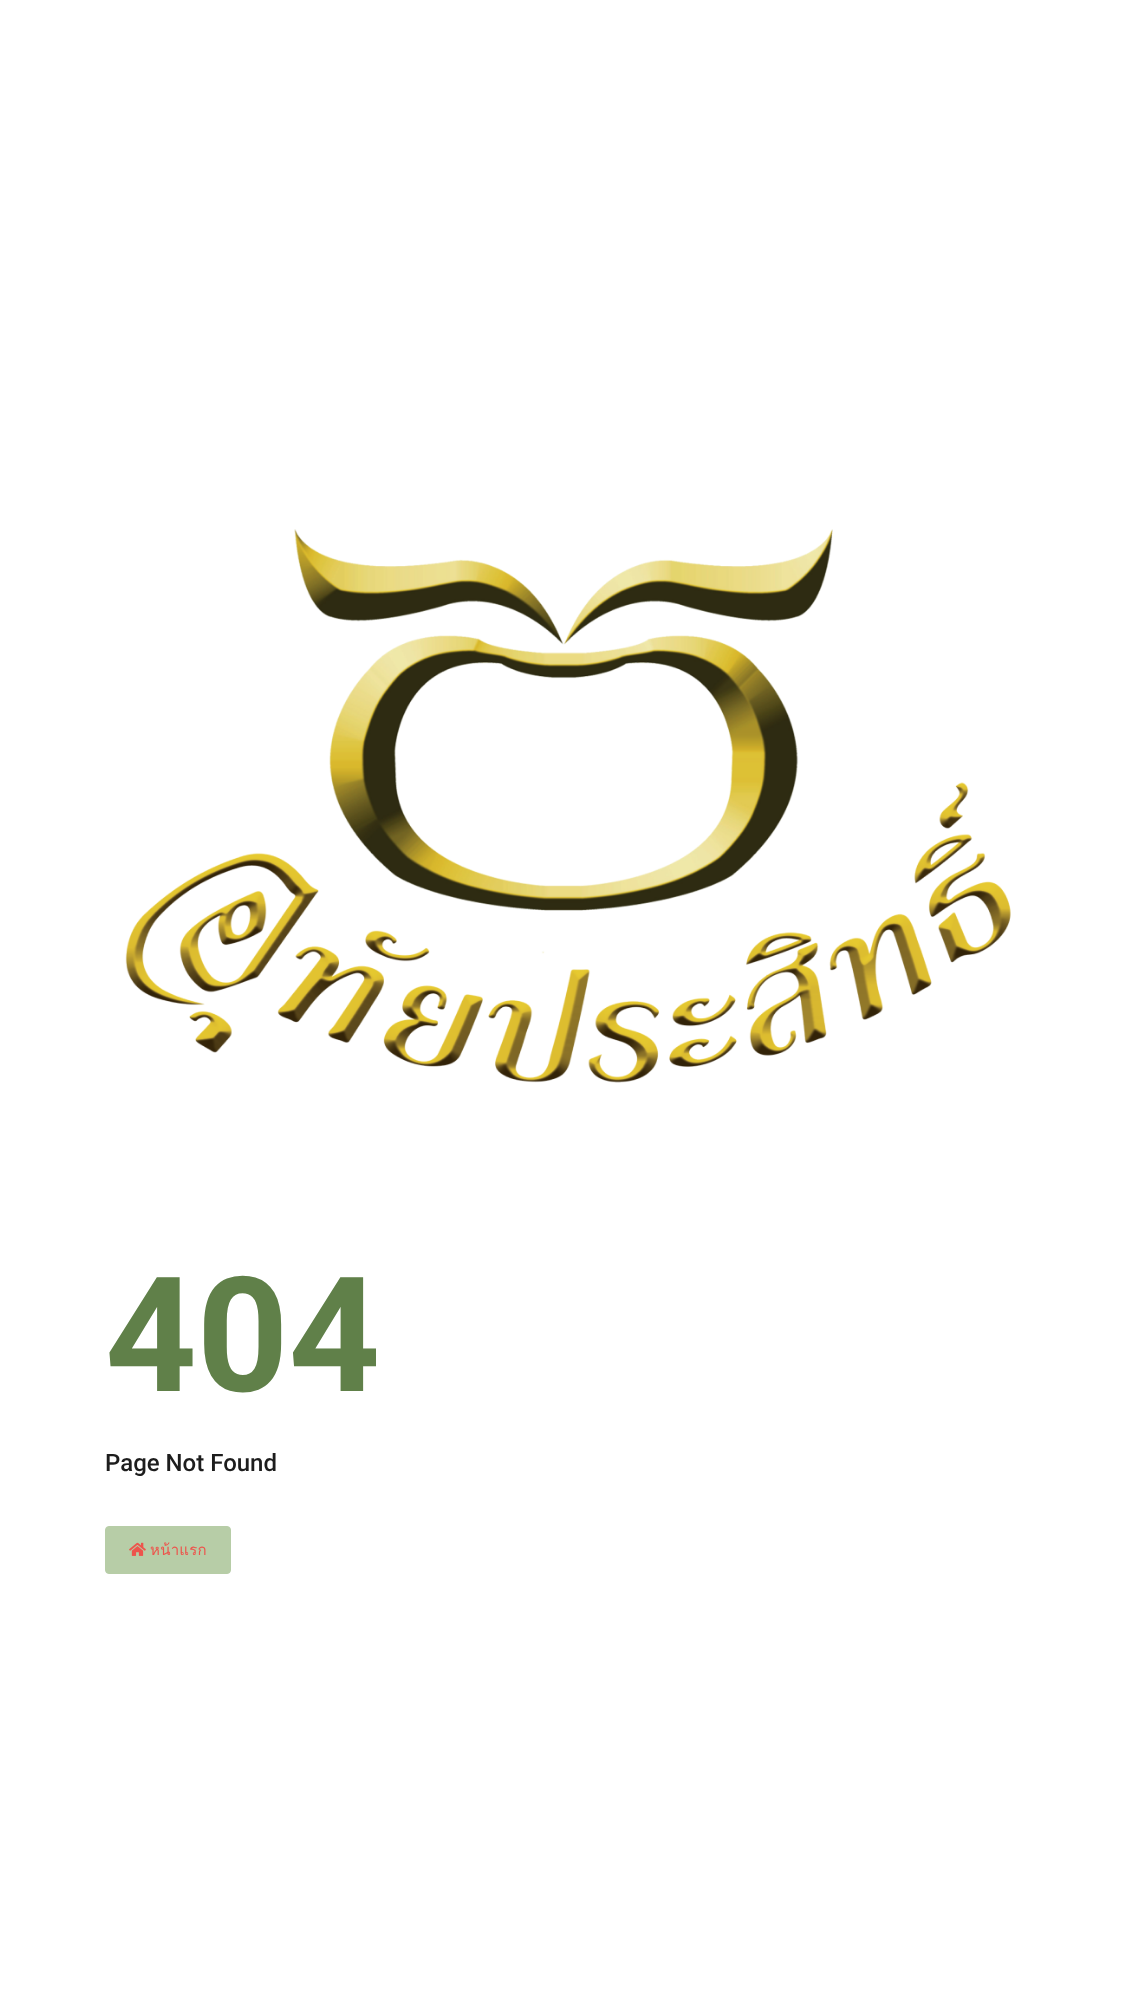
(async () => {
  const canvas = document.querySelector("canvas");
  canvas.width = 1139;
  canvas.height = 2003;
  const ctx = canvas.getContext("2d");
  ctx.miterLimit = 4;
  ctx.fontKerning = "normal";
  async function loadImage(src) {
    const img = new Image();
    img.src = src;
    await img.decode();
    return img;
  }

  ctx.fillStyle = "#ffffff";
  ctx.fillRect(0, 0, 1139, 2003);
  ctx.drawImage(await loadImage("img/1.png"), 125, 529, 886, 554);
  ctx.fillStyle = "#b7cda7";
  ctx.beginPath();
  ctx.roundRect(105.5, 1526.5, 125, 47, 3.5);
  ctx.fill();
  ctx.strokeStyle = "#b7cda7";
  ctx.stroke();
  ctx.drawImage(await loadImage("img/2.png"), 129, 1542, 17, 14);
  ctx.font = "bold 160px Roboto";
  ctx.fillStyle = "#608049";
  ctx.fillText("404", 105, 1391);
  ctx.font = "500 24px Roboto";
  ctx.fillStyle = "#1d1d1d";
  ctx.fillText("Page Not Found", 105, 1471);
  ctx.letterSpacing = "0.25px";
  ctx.font = "15px Loma";
  ctx.fillStyle = "#ed544c";
  ctx.fillText("หน้าแรก", 150, 1555);
})();
